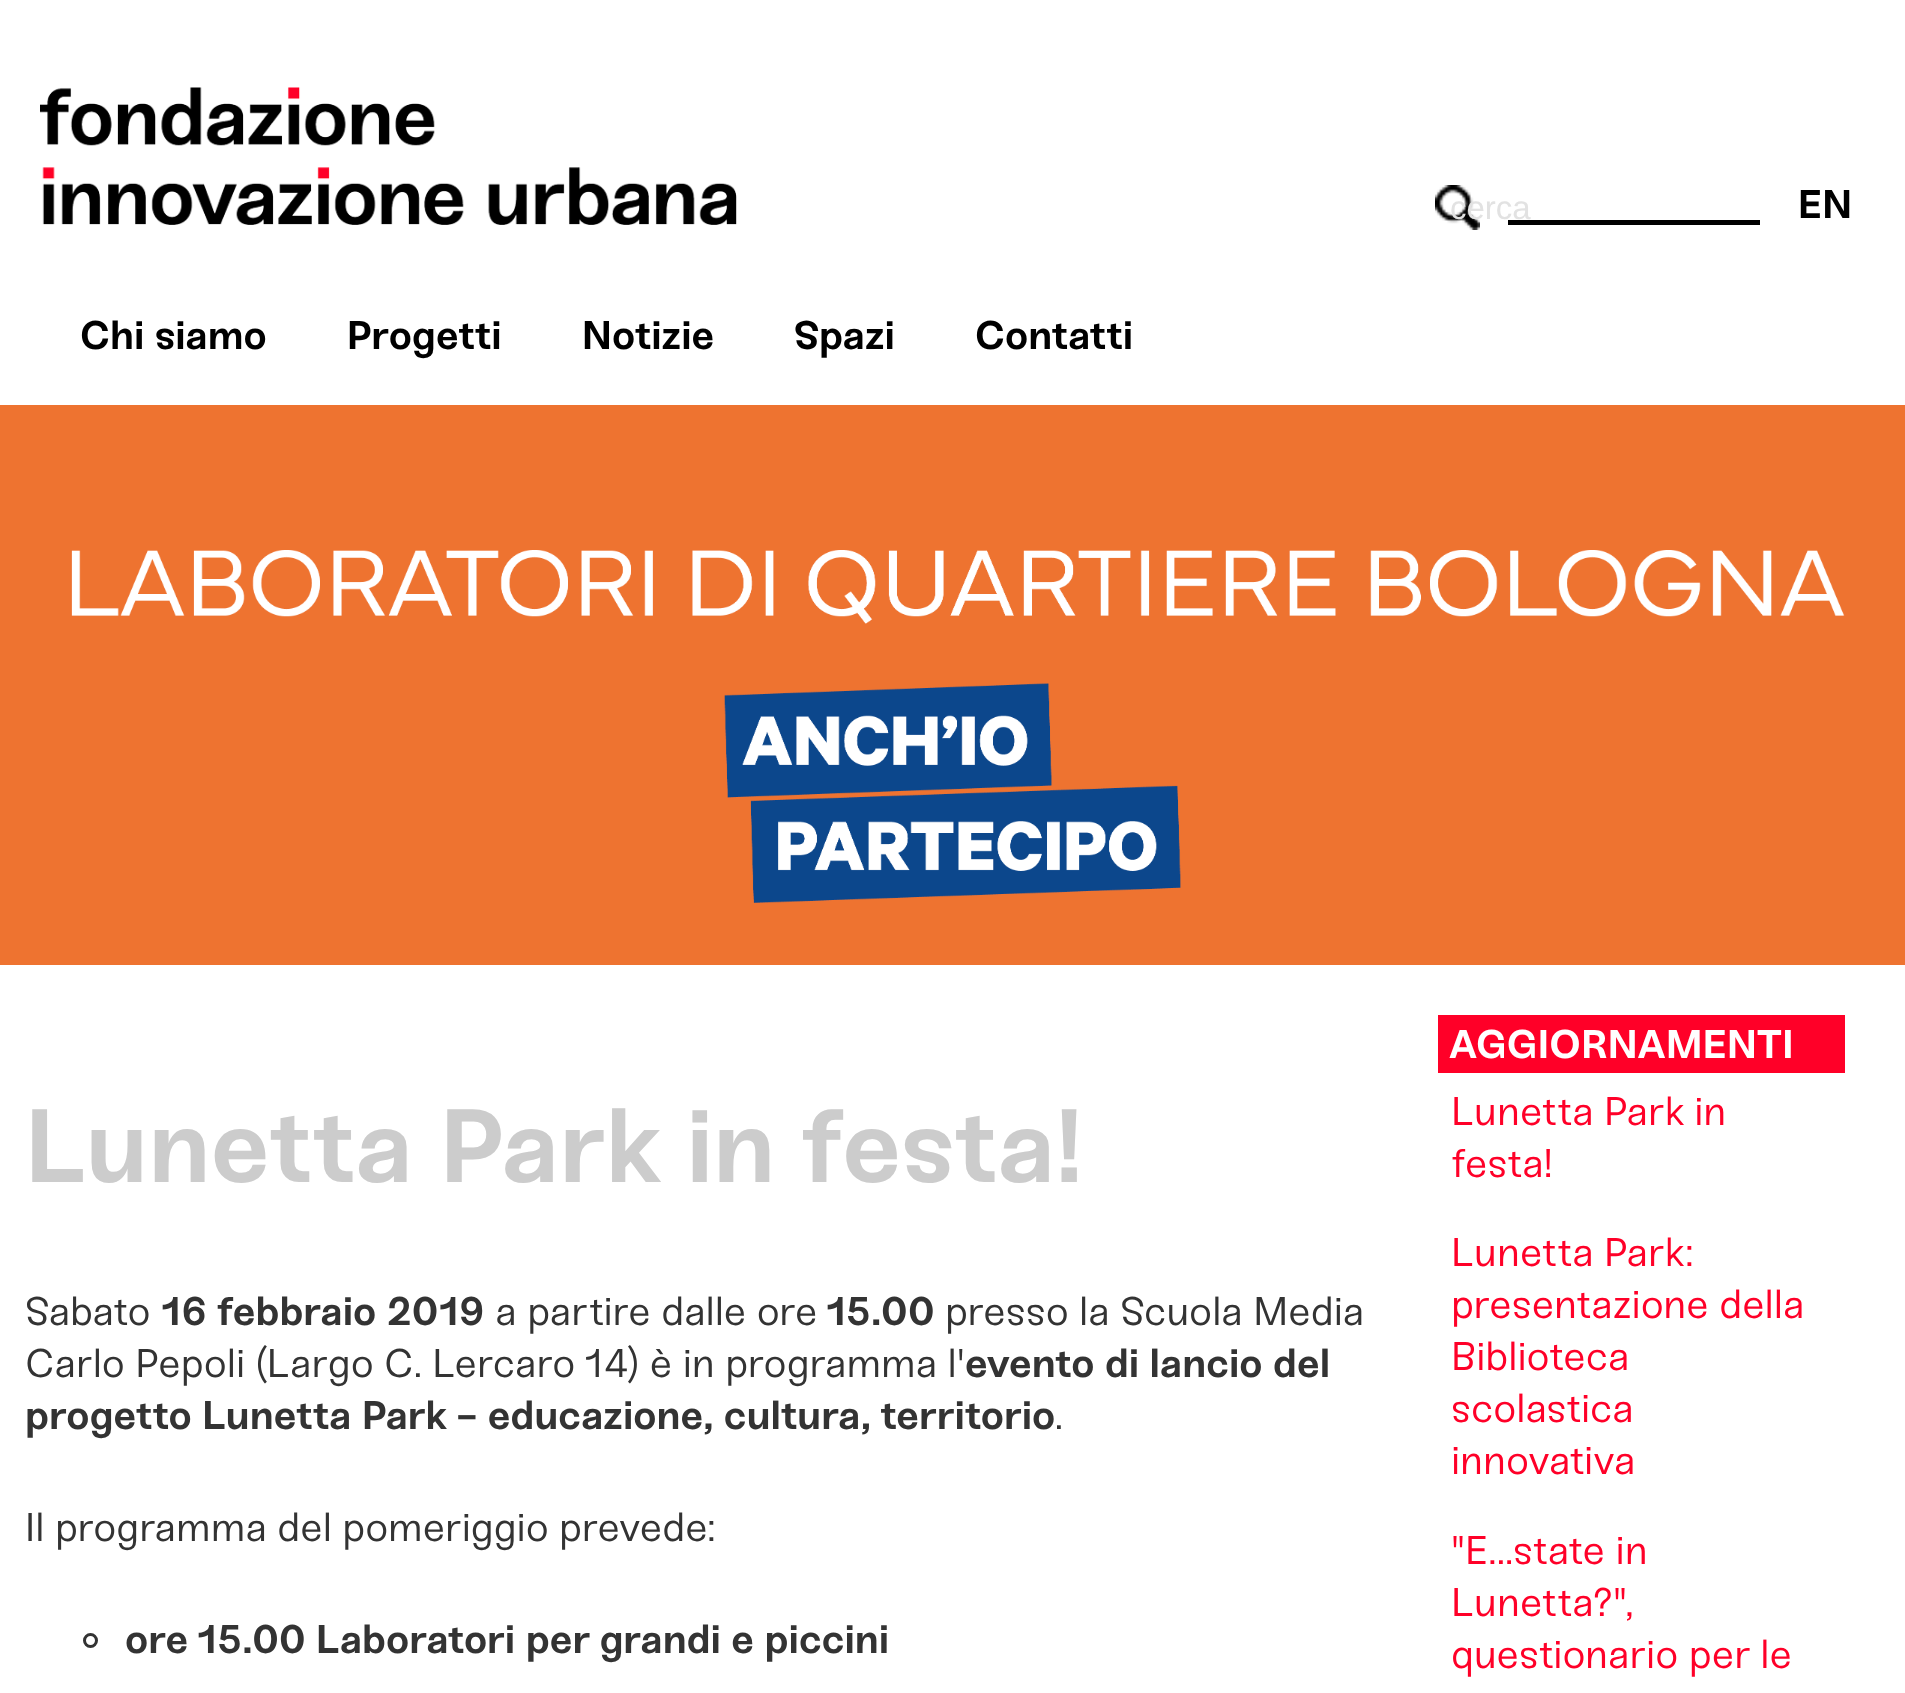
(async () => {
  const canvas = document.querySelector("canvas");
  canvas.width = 1905;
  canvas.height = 1693;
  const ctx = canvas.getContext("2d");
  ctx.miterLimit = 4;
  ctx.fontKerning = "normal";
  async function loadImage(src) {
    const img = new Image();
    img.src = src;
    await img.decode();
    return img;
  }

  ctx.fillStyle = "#ffffff";
  ctx.fillRect(0, 0, 1905, 1693);
  ctx.drawImage(await loadImage("img/1.png"), 40, 87, 697, 138);
  ctx.drawImage(await loadImage("img/2.png"), 1435, 185, 45, 45);
  ctx.fillStyle = "#000000";
  ctx.fillRect(1508, 220, 252, 5);
  ctx.drawImage(await loadImage("img/3.png"), 0, 405, 1905, 560);
  ctx.beginPath();
  ctx.arc(90.5, 1640.5, 6, 0, Math.PI * 2);
  ctx.strokeStyle = "#333333";
  ctx.lineWidth = 3;
  ctx.stroke();
  ctx.fillStyle = "#ff0028";
  ctx.fillRect(1438, 1015, 407, 58);
  ctx.font = "33px Liberation Sans";
  ctx.fillStyle = "#e2e2e2";
  ctx.fillText("cerca", 1450, 219);
  ctx.font = "bold 40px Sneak";
  ctx.fillStyle = "#000000";
  for (const [text, x, y] of [
    ["EN", 1798, 218],
    ["Chi siamo", 80, 349],
    ["Progetti", 347, 349],
    ["Notizie", 582, 349],
    ["Spazi", 794, 349],
    ["Contatti", 975, 349],
  ]) {
    ctx.fillText(text, x, y);
  }
  ctx.font = "bold 104px Sneak";
  ctx.fillStyle = "#cccccc";
  ctx.fillText("Lunetta Park in festa!", 25, 1182);
  ctx.font = "40px Sneak";
  ctx.fillStyle = "#333333";
  ctx.fillText("Sabato", 25, 1325);
  ctx.font = "bold 40px Sneak";
  ctx.fillText("16 febbraio 2019", 161, 1325);
  ctx.font = "40px Sneak";
  ctx.fillText("a partire dalle ore", 495, 1325);
  ctx.font = "bold 40px Sneak";
  ctx.fillText("15.00", 826, 1325);
  ctx.font = "40px Sneak";
  ctx.fillText("presso la Scuola Media", 945, 1325);
  ctx.fillText("Carlo Pepoli (Largo C. Lercaro 14) è in programma l'", 25, 1377);
  ctx.font = "bold 40px Sneak";
  ctx.fillText("evento di lancio del", 965, 1377);
  ctx.fillText("progetto Lunetta Park - educazione, cultura, territorio", 25, 1429);
  ctx.font = "40px Sneak";
  ctx.fillText(".", 1055, 1429);
  ctx.fillText("Il programma del pomeriggio prevede:", 25, 1541);
  ctx.font = "bold 40px Sneak";
  ctx.fillText("ore 15.00 Laboratori per grandi e piccini", 125, 1653);
  ctx.fillStyle = "#ffffff";
  ctx.fillText("AGGIORNAMENTI", 1449, 1058);
  ctx.font = "40px Sneak";
  ctx.fillStyle = "#ff0028";
  for (const [text, x, y] of [
    ["Lunetta Park in", 1451, 1125],
    ["festa!", 1451, 1177],
    ["Lunetta Park:", 1451, 1266],
    ["presentazione della", 1451, 1318],
    ["Biblioteca", 1451, 1370],
    ["scolastica", 1451, 1422],
    ["innovativa", 1451, 1474],
    ["\"E...state in", 1451, 1564],
    ["Lunetta?\",", 1451, 1616],
    ["questionario per le", 1451, 1668],
  ]) {
    ctx.fillText(text, x, y);
  }
})();
